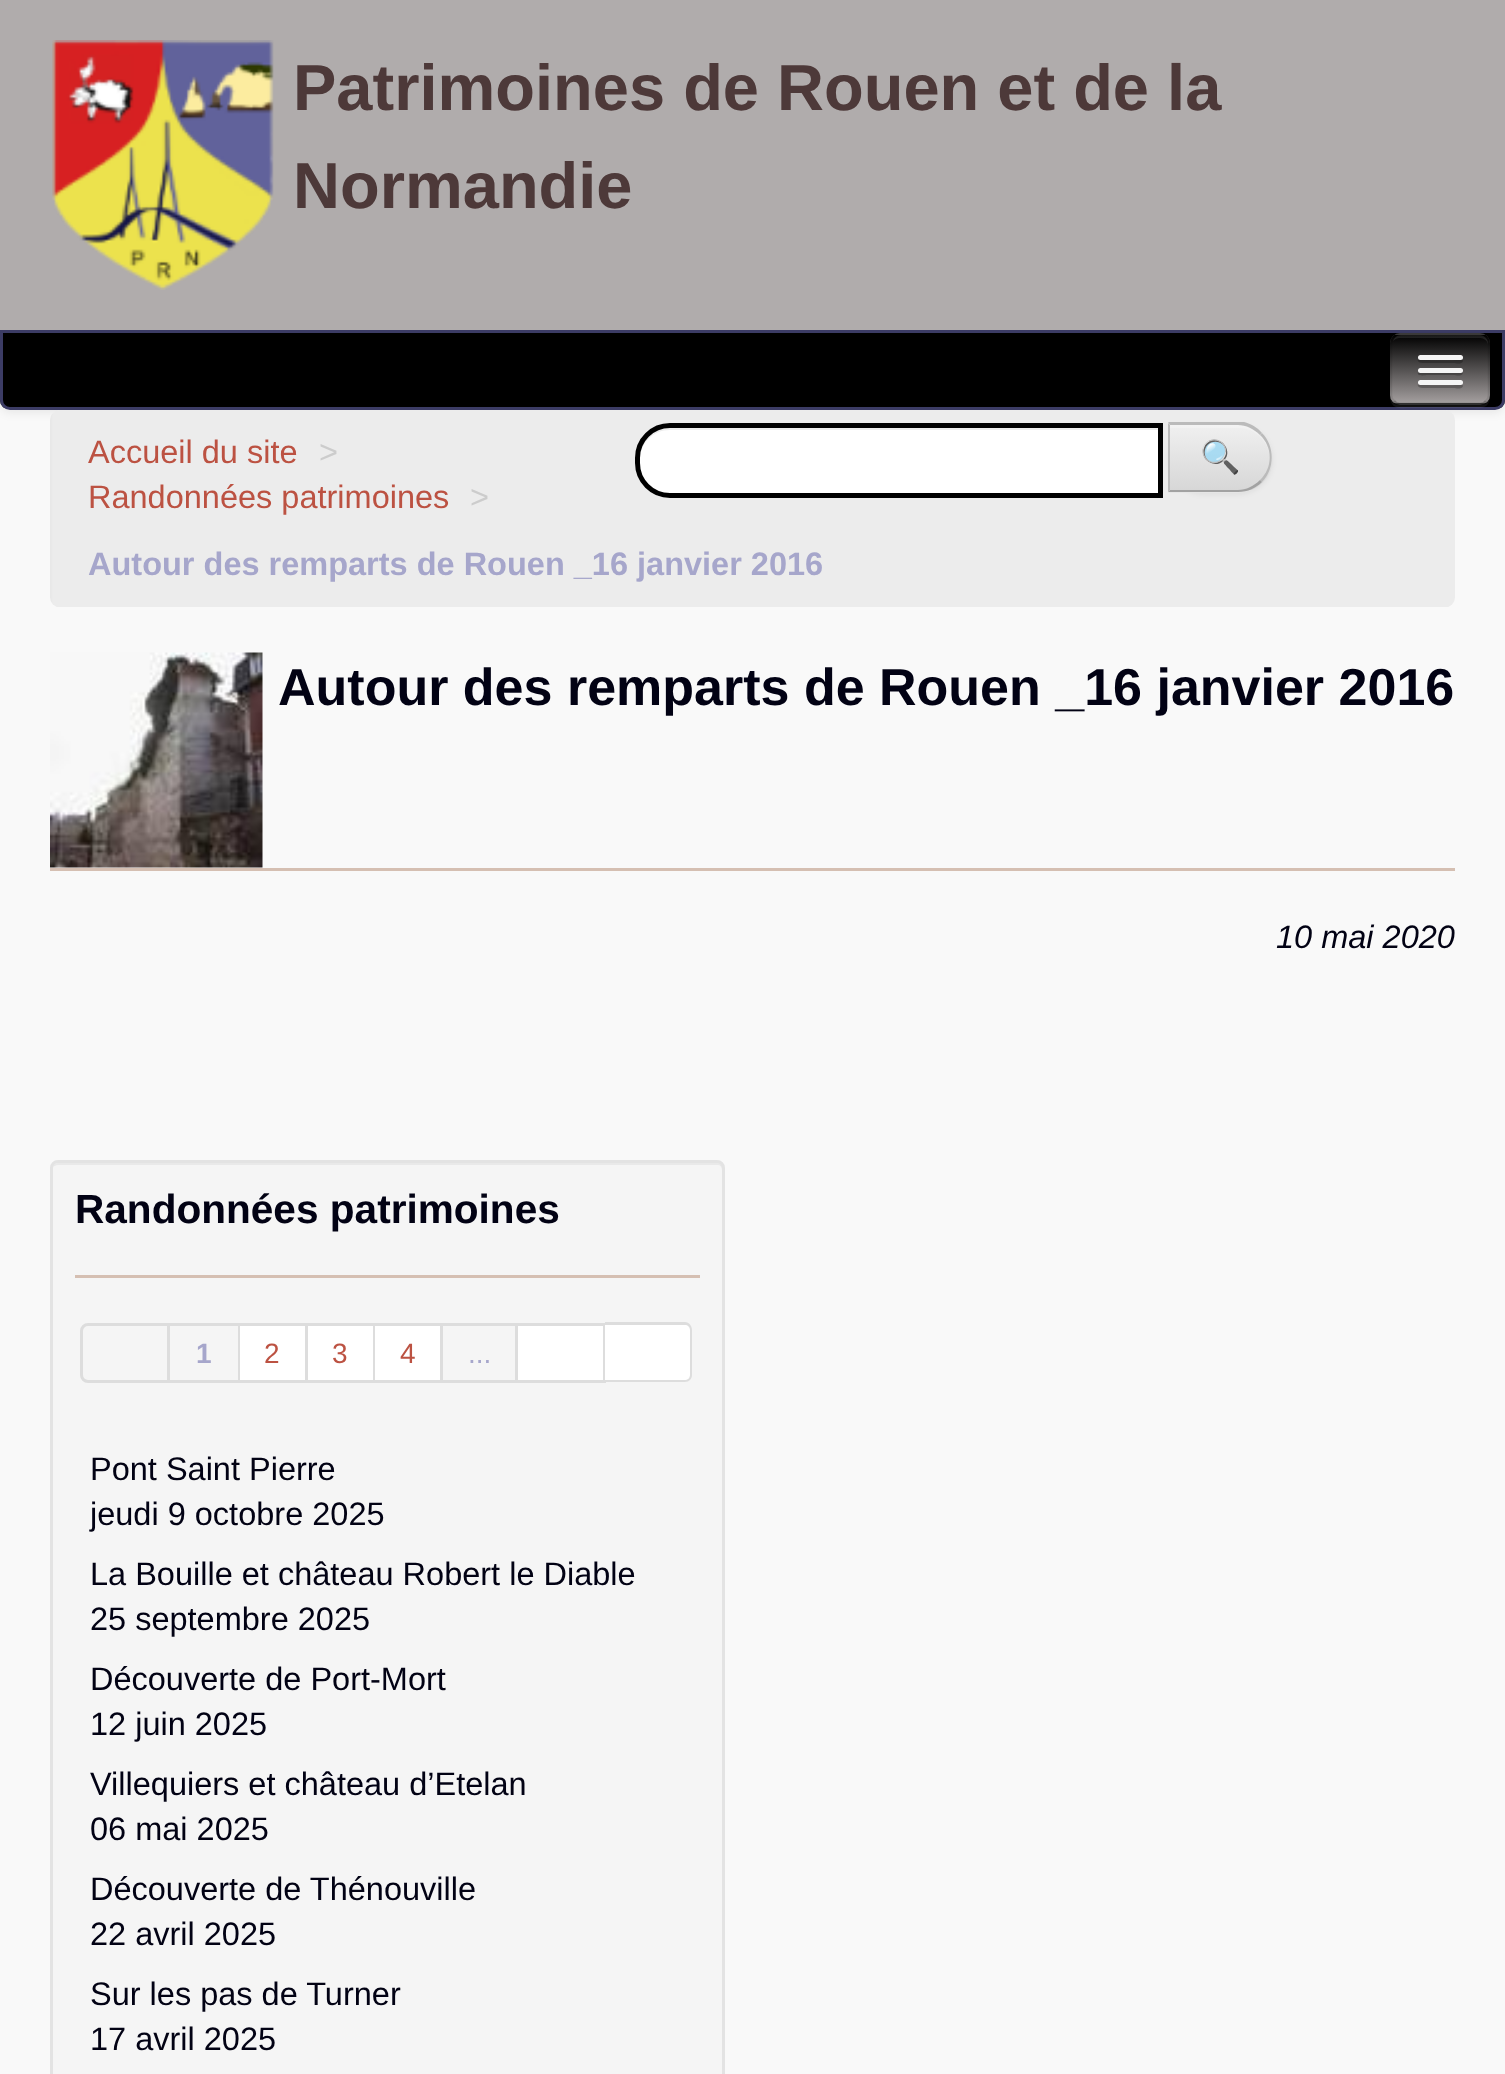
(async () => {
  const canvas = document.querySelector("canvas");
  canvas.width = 1505;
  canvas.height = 2074;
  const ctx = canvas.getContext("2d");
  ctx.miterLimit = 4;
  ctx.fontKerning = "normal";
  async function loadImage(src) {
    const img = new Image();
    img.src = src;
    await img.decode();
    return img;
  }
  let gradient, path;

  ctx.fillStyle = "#f9f9f9";
  ctx.fillRect(0, 0, 1505, 2074);
  ctx.fillStyle = "rgba(0, 0, 0, 0.07)";
  ctx.filter = "blur(5px)";
  ctx.beginPath();
  ctx.roundRect(0, 333, 1505, 80, 10);
  ctx.fill();
  ctx.filter = "none";
  ctx.fillStyle = "#b0acac";
  ctx.fillRect(0, 0, 1505, 330);
  ctx.drawImage(await loadImage("img/1.png"), 52, 40, 222, 250);
  ctx.save();
  ctx.beginPath();
  ctx.roundRect(0, 330, 1505, 80, [0, 0, 10, 10]);
  ctx.clip();
  ctx.fillStyle = "#000000";
  ctx.fillRect(0, 333, 1505, 75);
  ctx.restore();
  ctx.beginPath();
  ctx.roundRect(1.5, 331.5, 1502, 77, [0, 0, 8.5, 8.5]);
  ctx.strokeStyle = "#3c3c65";
  ctx.lineWidth = 3;
  ctx.stroke();
  ctx.fillStyle = "rgba(255, 255, 255, 0.07)";
  path = new Path2D("M1390 395C1390 411 1401 408 1413 408H1467C1479 408 1490 411 1490 395C1490 401 1486 405 1480 405H1400C1394 405 1390 401 1390 395Z");
  ctx.fill(path);
  ctx.fillStyle = "#414040";
  ctx.beginPath();
  ctx.roundRect(1390, 333, 100, 72, 10);
  ctx.fill();
  ctx.save();
  ctx.beginPath();
  ctx.roundRect(1390, 333, 100, 72, 10);
  ctx.clip();
  gradient = ctx.createLinearGradient(1440, 335, 1440, 403);
  gradient.addColorStop(0, "#000000");
  gradient.addColorStop(1, "#a49f9f");
  ctx.fillStyle = gradient;
  ctx.fillRect(1390, 335, 100, 68);
  ctx.restore();
  ctx.fillStyle = "rgba(255, 255, 255, 0.1)";
  path = new Path2D("M1400 338H1480C1484 338 1488 341 1488 345V343C1488 339 1484 335 1480 335H1401C1397 335 1394 338 1393 341C1395 339 1397 338 1400 338Z");
  ctx.fill(path);
  path = new Path2D("M1486 401C1484.5 403 1482.5 404 1480 404H1400C1397.5 404 1395.5 403 1394 401");
  ctx.strokeStyle = "rgba(0, 0, 0, 0.25)";
  ctx.lineWidth = 2.5;
  ctx.stroke(path);
  path = new Path2D("M1394 401C1392 399.5 1391 397.5 1391 395V342.5C1391 340 1392 338 1394 336.5C1395.5 334.5 1397.5 334 1400 334H1480C1482.5 334 1484.5 334.5 1486 336.5C1488 338 1489 340 1489 342.5V395C1489 397.5 1488 399.5 1486 401");
  ctx.strokeStyle = "rgba(0, 0, 0, 0.1)";
  ctx.stroke(path);
  ctx.fillStyle = "rgba(0, 0, 0, 0.25)";
  path = new Path2D("M1418 359C1416 364 1427 363 1427 363H1454C1455 363 1462 365 1463 361L1462 359L1460 360C1457 360 1420 361 1418 359Z");
  ctx.fill(path);
  ctx.fillStyle = "#f5f5f5";
  ctx.beginPath();
  ctx.roundRect(1418, 355, 45, 5, 2.5);
  ctx.fill();
  ctx.fillStyle = "rgba(0, 0, 0, 0.25)";
  path = new Path2D("M1418 372C1416 377 1426 375 1427 375H1454C1455 375 1462 377 1463 373L1462 371L1460 372H1420Z");
  ctx.fill(path);
  ctx.fillStyle = "#f5f5f5";
  ctx.beginPath();
  ctx.roundRect(1418, 368, 45, 5, 2.5);
  ctx.fill();
  ctx.fillStyle = "rgba(0, 0, 0, 0.25)";
  path = new Path2D("M1418 384C1416 389 1427 388 1427 388H1454C1455 388 1462 390 1463 386L1462 384L1460 385C1457 385 1420 386 1418 384Z");
  ctx.fill(path);
  ctx.fillStyle = "#f5f5f5";
  ctx.beginPath();
  ctx.roundRect(1418, 380, 45, 5, 2.5);
  ctx.fill();
  ctx.fillStyle = "#f9f9f9";
  ctx.beginPath();
  ctx.roundRect(50, 410, 1405, 198, 10);
  ctx.fill();
  ctx.drawImage(await loadImage("img/2.png"), 50, 410, 1405, 197);
  ctx.fillStyle = "rgba(0, 0, 0, 0.05)";
  ctx.filter = "blur(2.5px)";
  ctx.beginPath();
  ctx.roundRect(1168, 425, 105, 70, 35);
  ctx.fill();
  ctx.filter = "none";
  ctx.fillStyle = "#ffffff";
  ctx.beginPath();
  ctx.roundRect(635, 423, 528, 75, [35, 0, 0, 35]);
  ctx.fill();
  ctx.fillStyle = "#ececec";
  path = new Path2D("M670 430H1158V428H670C653 428 640 441 640 458V460C640 443 653 430 670 430Z");
  ctx.fill(path);
  ctx.beginPath();
  ctx.roundRect(637.5, 425.5, 523, 70, [32.5, 0, 0, 32.5]);
  ctx.strokeStyle = "#000000";
  ctx.lineWidth = 5;
  ctx.stroke();
  ctx.fillStyle = "#e6e6e6";
  ctx.beginPath();
  ctx.roundRect(1168, 423, 105, 70, [0, 35, 35, 0]);
  ctx.fill();
  ctx.save();
  ctx.beginPath();
  ctx.roundRect(1168, 423, 105, 70, [0, 35, 35, 0]);
  ctx.clip();
  gradient = ctx.createLinearGradient(1220, 425, 1220, 490);
  gradient.addColorStop(0, "#f0f0f0");
  gradient.addColorStop(1, "#d7d7d7");
  ctx.fillStyle = gradient;
  ctx.fillRect(1170, 425, 103, 65);
  ctx.restore();
  ctx.fillStyle = "rgba(255, 255, 255, 0.2)";
  path = new Path2D("M1170 428H1238C1255 428 1269 441 1270 459V458C1270 440 1255 425 1238 425H1170Z");
  ctx.fill(path);
  ctx.fillStyle = "#bbbbbb";
  path = new Path2D("M1170 425L1168 422H1244C1251 424 1257 427 1262 433L1260 435C1254 429 1246 425 1238 425Z");
  ctx.fill(path);
  path = new Path2D("M1262 433C1275 446 1275 469 1262 482L1260 480C1273 468 1273 447 1260 435Z");
  ctx.fill(path);
  ctx.fillStyle = "#a2a2a2";
  path = new Path2D("M1262 482C1256 488 1248 492 1238 492H1168L1170 490H1238C1246 490 1254 486 1260 480Z");
  ctx.fill(path);
  ctx.fillStyle = "#bbbbbb";
  path = new Path2D("M1170 425L1168 423V492L1170 490Z");
  ctx.fill(path);
  ctx.drawImage(await loadImage("img/3.png"), 50, 652, 213, 216);
  ctx.fillStyle = "#d5bfb2";
  ctx.fillRect(50, 868, 1405, 3);
  ctx.fillStyle = "#f5f5f5";
  ctx.beginPath();
  ctx.roundRect(50, 1160, 675, 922, 8);
  ctx.fill();
  ctx.fillStyle = "#e9e9e9";
  path = new Path2D("M58 1165H718C720 1165 722 1167 722 1170V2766C723 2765 723 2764 723 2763V1168C723 1165 721 1163 718 1163H58C56 1163 53 1165 53 1167C54 1166 56 1165 58 1165Z");
  ctx.fill(path);
  ctx.beginPath();
  ctx.roundRect(51.5, 1161.5, 672, 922, 6.5);
  ctx.strokeStyle = "#e3e3e3";
  ctx.lineWidth = 3;
  ctx.stroke();
  ctx.fillStyle = "#d5bfb2";
  ctx.fillRect(75, 1275, 625, 3);
  ctx.beginPath();
  ctx.roundRect(81.5, 1324.5, 87, 57, [6.5, 0, 0, 6.5]);
  ctx.strokeStyle = "#dddddd";
  ctx.stroke();
  for (const [x, y, w, h, color] of [
    [170, 1323, 435, 3, "#dddddd"],
    [238, 1323, 2, 60, "#dddddd"],
    [170, 1380, 70, 3, "#dddddd"],
    [240, 1326, 65, 54, "#ffffff"],
    [305, 1323, 3, 60, "#dddddd"],
    [240, 1380, 68, 3, "#dddddd"],
    [308, 1326, 65, 54, "#ffffff"],
    [373, 1323, 2, 60, "#dddddd"],
    [308, 1380, 67, 3, "#dddddd"],
    [375, 1326, 65, 54, "#ffffff"],
    [440, 1323, 3, 60, "#dddddd"],
    [375, 1380, 68, 3, "#dddddd"],
    [515, 1323, 3, 60, "#dddddd"],
    [443, 1380, 75, 3, "#dddddd"],
    [518, 1326, 85, 54, "#ffffff"],
    [603, 1323, 3, 60, "#dddddd"],
    [518, 1380, 87, 3, "#dddddd"],
  ]) {
    ctx.fillStyle = color;
    ctx.fillRect(x, y, w, h);
  }
  ctx.fillStyle = "#ffffff";
  ctx.beginPath();
  ctx.roundRect(605, 1325, 85, 55, [0, 5, 5, 0]);
  ctx.fill();
  ctx.fillStyle = "#dddddd";
  path = new Path2D("M605 1322H685C689 1322 692 1326 692 1330V1375C692 1379 689 1382 685 1382H605ZM605 1325H685C688 1325 690 1327 690 1330V1375C690 1378 688 1380 685 1380H605Z");
  ctx.fill(path, "evenodd");
  ctx.font = "bold 65px Liberation Sans";
  ctx.fillStyle = "#4d3939";
  ctx.fillText("Patrimoines de Rouen et de la", 293, 110);
  ctx.fillText("Normandie", 293, 208);
  ctx.font = "32.5px Liberation Sans";
  ctx.fillStyle = "#bc5242";
  ctx.fillText("Accueil du site", 88, 463);
  ctx.fillStyle = "#cccccc";
  ctx.fillText(">", 319, 463);
  ctx.fillStyle = "#bc5242";
  ctx.fillText("Randonnées patrimoines", 88, 508);
  ctx.fillStyle = "#cccccc";
  ctx.fillText(">", 470, 508);
  ctx.font = "bold 32.5px Liberation Sans";
  ctx.fillStyle = "#a6a6cb";
  ctx.fillText("Autour des remparts de Rouen _16 janvier 2016", 88, 575);
  ctx.font = "32.5px Noto Color Emoji";
  ctx.fillStyle = "#5d5d9b";
  ctx.fillText("🔍", 1200, 468);
  ctx.font = "bold 52px Liberation Sans";
  ctx.fillStyle = "#020214";
  ctx.fillText("Autour des remparts de Rouen _16 janvier 2016", 278, 705);
  ctx.font = "italic 32.5px Liberation Sans";
  ctx.fillText("10 mai 2020", 1276, 948);
  ctx.font = "bold 40.6px Liberation Sans";
  ctx.fillText("Randonnées patrimoines", 75, 1223);
  ctx.font = "bold 28px Liberation Sans";
  ctx.fillStyle = "#a6a6cb";
  ctx.fillText("1", 196, 1363);
  ctx.font = "28px Liberation Sans";
  ctx.fillStyle = "#bc5242";
  for (const [text, x, y] of [
    ["2", 264, 1363],
    ["3", 332, 1363],
    ["4", 400, 1363],
  ]) {
    ctx.fillText(text, x, y);
  }
  ctx.fillStyle = "#a6a6cb";
  ctx.fillText("...", 468, 1363);
  ctx.font = "32.5px Liberation Sans";
  ctx.fillStyle = "#020214";
  for (const [text, x, y] of [
    ["Pont Saint Pierre", 90, 1480],
    ["jeudi 9 octobre 2025", 90, 1525],
    ["La Bouille et château Robert le Diable", 90, 1585],
    ["25 septembre 2025", 90, 1630],
    ["Découverte de Port-Mort", 90, 1690],
    ["12 juin 2025", 90, 1735],
    ["Villequiers et château d’Etelan", 90, 1795],
    ["06 mai 2025", 90, 1840],
    ["Découverte de Thénouville", 90, 1900],
    ["22 avril 2025", 90, 1945],
    ["Sur les pas de Turner", 90, 2005],
    ["17 avril 2025", 90, 2050],
  ]) {
    ctx.fillText(text, x, y);
  }
})();
